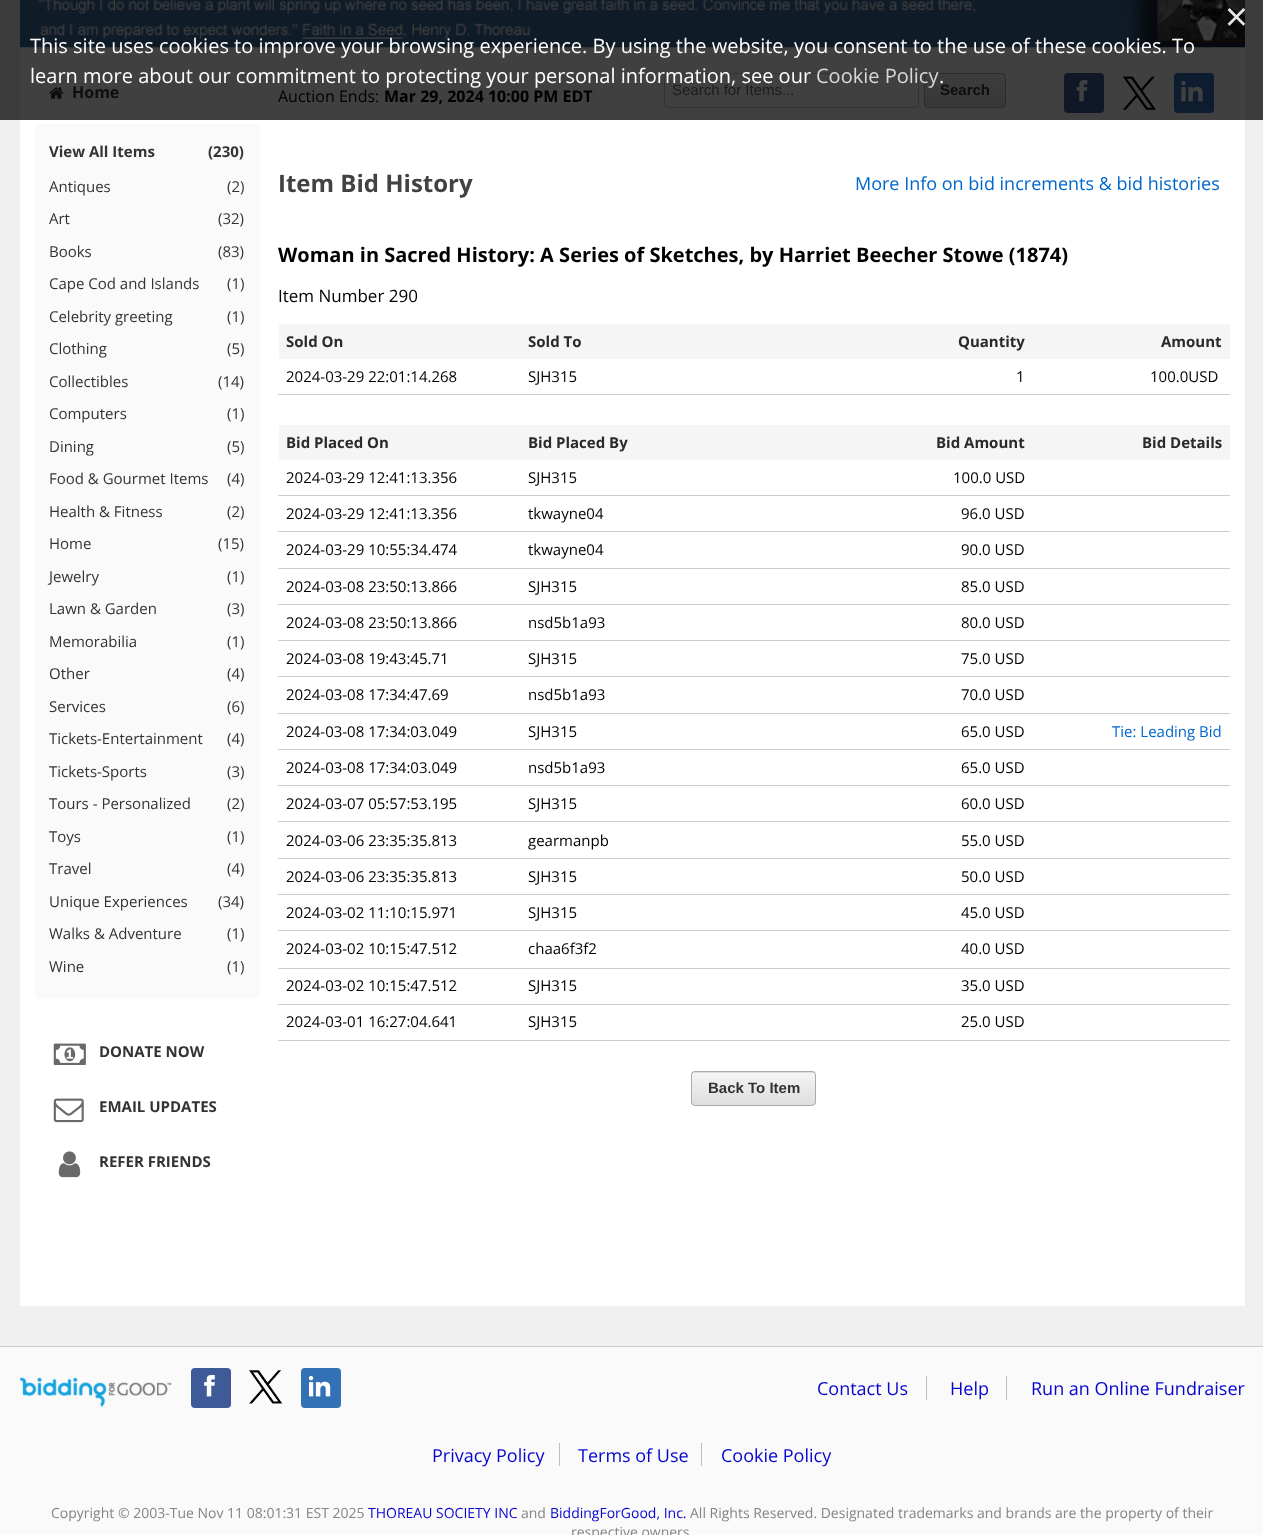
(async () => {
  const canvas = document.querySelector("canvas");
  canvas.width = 1263;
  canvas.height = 1535;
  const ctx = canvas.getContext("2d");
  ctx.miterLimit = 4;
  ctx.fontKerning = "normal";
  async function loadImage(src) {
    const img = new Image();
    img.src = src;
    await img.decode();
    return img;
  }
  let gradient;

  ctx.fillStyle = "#f0f0f0";
  ctx.fillRect(0, 0, 1263, 1535);
  ctx.fillStyle = "#3c3c3c";
  ctx.fillRect(0, 0, 1263, 120);
  ctx.fillStyle = "#404040";
  ctx.fillRect(20, 47, 1225, 73);
  ctx.drawImage(await loadImage("img/1.png"), 20, 0, 1225, 48);
  ctx.fillStyle = "#ffffff";
  ctx.fillRect(20, 120, 1225, 1186);
  ctx.drawImage(await loadImage("img/2.png"), 49, 87, 15, 12);
  ctx.fillStyle = "#fafafa";
  ctx.beginPath();
  ctx.roundRect(35, 124, 225, 875, 5);
  ctx.fill();
  ctx.drawImage(await loadImage("img/3.png"), 53, 1043, 33, 22);
  ctx.drawImage(await loadImage("img/4.png"), 53, 1098, 31, 25);
  ctx.drawImage(await loadImage("img/5.png"), 58, 1151, 23, 27);
  ctx.beginPath();
  ctx.roundRect(664.5, 73.5, 254, 34, 3.5);
  ctx.strokeStyle = "#333333";
  ctx.stroke();
  ctx.save();
  ctx.beginPath();
  ctx.roundRect(924, 73, 82, 35, 4);
  ctx.clip();
  gradient = ctx.createLinearGradient(965, 74, 965, 106);
  gradient.addColorStop(0, "#3d3d3d");
  gradient.addColorStop(1, "#383737");
  ctx.fillStyle = gradient;
  ctx.fillRect(924, 74, 82, 32);
  gradient = ctx.createLinearGradient(965, 106, 965, 139);
  gradient.addColorStop(0, "#3d3d3d");
  gradient.addColorStop(1, "#383737");
  ctx.fillStyle = gradient;
  ctx.fillRect(924, 106, 82, 2);
  ctx.restore();
  ctx.beginPath();
  ctx.roundRect(924.5, 73.5, 81, 34, 3.5);
  ctx.strokeStyle = "#2b2b2b";
  ctx.stroke();
  ctx.fillStyle = "#101726";
  ctx.beginPath();
  ctx.roundRect(1064, 73, 40, 40, 4);
  ctx.fill();
  ctx.drawImage(await loadImage("img/6.png"), 1076, 80, 12, 22);
  ctx.drawImage(await loadImage("img/7.png"), 1122, 76, 34, 34);
  ctx.fillStyle = "#0d1c2e";
  ctx.beginPath();
  ctx.roundRect(1174, 73, 40, 40, 4);
  ctx.fill();
  ctx.drawImage(await loadImage("img/8.png"), 1181, 80, 22, 22);
  for (const [x, y, w, h, color] of [
    [279, 324, 951, 35, "#f5f5f5"],
    [278, 394, 952, 1, "#cccccc"],
    [279, 425, 951, 35, "#f5f5f5"],
    [278, 495, 952, 1, "#cccccc"],
    [278, 531, 952, 1, "#cccccc"],
    [278, 568, 952, 1, "#cccccc"],
    [278, 604, 952, 1, "#cccccc"],
    [278, 640, 952, 1, "#cccccc"],
    [278, 676, 952, 1, "#cccccc"],
    [278, 713, 952, 1, "#cccccc"],
    [278, 749, 952, 1, "#cccccc"],
    [278, 785, 952, 1, "#cccccc"],
    [278, 821, 952, 1, "#cccccc"],
    [278, 858, 952, 1, "#cccccc"],
    [278, 894, 952, 1, "#cccccc"],
    [278, 930, 952, 1, "#cccccc"],
    [278, 968, 952, 1, "#cccccc"],
    [278, 1004, 952, 1, "#cccccc"],
    [278, 1040, 952, 1, "#cccccc"],
  ]) {
    ctx.fillStyle = color;
    ctx.fillRect(x, y, w, h);
  }
  ctx.save();
  ctx.beginPath();
  ctx.roundRect(691, 1071, 125, 35, 4);
  ctx.clip();
  gradient = ctx.createLinearGradient(754, 1040, 754, 1073);
  gradient.addColorStop(0, "#f4f5f5");
  gradient.addColorStop(1, "#dfdddd");
  ctx.fillStyle = gradient;
  ctx.fillRect(691, 1071, 125, 2);
  gradient = ctx.createLinearGradient(754, 1073, 754, 1105);
  gradient.addColorStop(0, "#f4f5f5");
  gradient.addColorStop(1, "#dfdddd");
  ctx.fillStyle = gradient;
  ctx.fillRect(691, 1073, 125, 32);
  ctx.restore();
  ctx.beginPath();
  ctx.roundRect(691.5, 1071.5, 124, 34, 3.5);
  ctx.strokeStyle = "#aaaaaa";
  ctx.stroke();
  ctx.fillStyle = "#fafafa";
  ctx.fillRect(0, 1347, 1263, 188);
  ctx.fillStyle = "#cccccc";
  ctx.fillRect(0, 1346, 1263, 1);
  ctx.drawImage(await loadImage("img/9.png"), 20, 1377, 152, 31);
  ctx.fillStyle = "#3e5b98";
  ctx.beginPath();
  ctx.roundRect(191, 1368, 40, 40, 4);
  ctx.fill();
  ctx.drawImage(await loadImage("img/10.png"), 204, 1375, 11, 22);
  ctx.drawImage(await loadImage("img/11.png"), 249, 1370, 34, 34);
  ctx.fillStyle = "#3371b7";
  ctx.beginPath();
  ctx.roundRect(301, 1368, 40, 40, 4);
  ctx.fill();
  ctx.drawImage(await loadImage("img/12.png"), 309, 1375, 22, 22);
  for (const [x, y, w, h, color] of [
    [926, 1376, 1, 24, "#bebebe"],
    [1006, 1376, 1, 24, "#bebebe"],
    [559, 1443, 1, 23, "#bebebe"],
    [701, 1443, 1, 23, "#bebebe"],
  ]) {
    ctx.fillStyle = color;
    ctx.fillRect(x, y, w, h);
  }
  ctx.font = "40px Open Sans";
  ctx.fillStyle = "#e7e7e7";
  ctx.fillText("×", 1225, 31);
  ctx.font = "20px Open Sans";
  ctx.fillStyle = "#ffffff";
  ctx.fillText("This site uses cookies to improve your browsing experience. By using the website, you consent to the use of these cookies. To", 30, 53);
  ctx.fillText("learn more about our commitment to protecting your personal information, see our", 30, 83);
  ctx.fillStyle = "#d8d8d8";
  ctx.fillText("Cookie Policy", 816, 83);
  ctx.fillStyle = "#ffffff";
  ctx.fillText(".", 939, 83);
  ctx.font = "bold 16px Open Sans";
  ctx.fillStyle = "#0d0d0d";
  ctx.fillText("Home", 72, 98);
  ctx.font = "bold 15px Open Sans";
  ctx.fillStyle = "#333333";
  ctx.fillText("View All Items", 49, 157);
  ctx.fillText("(230)", 208, 157);
  ctx.font = "15px Open Sans";
  for (const [text, x, y] of [
    ["Antiques", 49, 192],
    ["(2)", 227, 192],
    ["Art", 49, 224],
    ["(32)", 218, 224],
    ["Books", 49, 257],
    ["(83)", 218, 257],
    ["Cape Cod and Islands", 49, 289],
    ["(1)", 227, 289],
    ["Celebrity greeting", 49, 322],
    ["(1)", 227, 322],
    ["Clothing", 49, 354],
    ["(5)", 227, 354],
    ["Collectibles", 49, 387],
    ["(14)", 218, 387],
    ["Computers", 49, 419],
    ["(1)", 227, 419],
    ["Dining", 49, 452],
    ["(5)", 227, 452],
    ["Food & Gourmet Items", 49, 484],
    ["(4)", 227, 484],
    ["Health & Fitness", 49, 517],
    ["(2)", 227, 517],
    ["Home", 49, 549],
    ["(15)", 218, 549],
    ["Jewelry", 49, 582],
    ["(1)", 227, 582],
    ["Lawn & Garden", 49, 614],
    ["(3)", 227, 614],
    ["Memorabilia", 49, 647],
    ["(1)", 227, 647],
    ["Other", 49, 679],
    ["(4)", 227, 679],
    ["Services", 49, 712],
    ["(6)", 227, 712],
    ["Tickets-Entertainment", 49, 744],
    ["(4)", 227, 744],
    ["Tickets-Sports", 49, 777],
    ["(3)", 227, 777],
    ["Tours - Personalized", 49, 809],
    ["(2)", 227, 809],
    ["Toys", 49, 842],
    ["(1)", 227, 842],
    ["Travel", 49, 874],
    ["(4)", 227, 874],
    ["Unique Experiences", 49, 907],
    ["(34)", 218, 907],
    ["Walks & Adventure", 49, 939],
    ["(1)", 227, 939],
    ["Wine", 49, 972],
    ["(1)", 227, 972],
  ]) {
    ctx.fillText(text, x, y);
  }
  ctx.font = "bold 15px Open Sans";
  for (const [text, x, y] of [
    ["DONATE NOW", 99, 1057],
    ["EMAIL UPDATES", 99, 1112],
    ["REFER FRIENDS", 99, 1167],
  ]) {
    ctx.fillText(text, x, y);
  }
  ctx.font = "16px Open Sans";
  ctx.fillStyle = "#000000";
  ctx.fillText("Auction Ends:", 278, 102);
  ctx.font = "bold 16px Open Sans";
  ctx.fillText("Mar 29, 2024 10:00 PM EDT", 384, 102);
  ctx.font = "15px Liberation Sans";
  ctx.fillStyle = "#1d1d1d";
  ctx.fillText("Search for Items...", 672, 95);
  ctx.font = "bold 15px Liberation Sans";
  ctx.fillStyle = "#0d0d0d";
  ctx.fillText("Search", 940, 95);
  ctx.font = "bold 24px Open Sans";
  ctx.fillStyle = "#424242";
  ctx.fillText("Item Bid History", 278, 192);
  ctx.font = "18px Open Sans";
  ctx.fillStyle = "#0066cc";
  ctx.fillText("More Info on bid increments & bid histories", 855, 190);
  ctx.font = "bold 20px Open Sans";
  ctx.fillStyle = "#000000";
  ctx.fillText("Woman in Sacred History: A Series of Sketches, by Harriet Beecher Stowe (1874)", 278, 262);
  ctx.font = "17px Open Sans";
  ctx.fillText("Item Number 290", 278, 302);
  ctx.font = "bold 15px Open Sans";
  ctx.fillStyle = "#2a2a2a";
  for (const [text, x, y] of [
    ["Sold On", 286, 347],
    ["Sold To", 528, 347],
    ["Quantity", 958, 347],
    ["Amount", 1161, 347],
  ]) {
    ctx.fillText(text, x, y);
  }
  ctx.font = "15px Open Sans";
  ctx.fillStyle = "#000000";
  for (const [text, x, y] of [
    ["2024-03-29 22:01:14.268", 286, 382],
    ["SJH315", 528, 382],
    ["1", 1016, 382],
    ["100.0USD", 1150, 382],
  ]) {
    ctx.fillText(text, x, y);
  }
  ctx.font = "bold 15px Open Sans";
  ctx.fillStyle = "#2a2a2a";
  for (const [text, x, y] of [
    ["Bid Placed On", 286, 448],
    ["Bid Placed By", 528, 448],
    ["Bid Amount", 936, 448],
    ["Bid Details", 1142, 448],
  ]) {
    ctx.fillText(text, x, y);
  }
  ctx.font = "15px Open Sans";
  ctx.fillStyle = "#000000";
  for (const [text, x, y] of [
    ["2024-03-29 12:41:13.356", 286, 483],
    ["SJH315", 528, 483],
    ["100.0 USD", 953, 483],
    ["2024-03-29 12:41:13.356", 286, 519],
    ["tkwayne04", 528, 519],
    ["96.0 USD", 961, 519],
    ["2024-03-29 10:55:34.474", 286, 555],
    ["tkwayne04", 528, 555],
    ["90.0 USD", 961, 555],
    ["2024-03-08 23:50:13.866", 286, 592],
    ["SJH315", 528, 592],
    ["85.0 USD", 961, 592],
    ["2024-03-08 23:50:13.866", 286, 628],
    ["nsd5b1a93", 528, 628],
    ["80.0 USD", 961, 628],
    ["2024-03-08 19:43:45.71", 286, 664],
    ["SJH315", 528, 664],
    ["75.0 USD", 961, 664],
    ["2024-03-08 17:34:47.69", 286, 700],
    ["nsd5b1a93", 528, 700],
    ["70.0 USD", 961, 700],
    ["2024-03-08 17:34:03.049", 286, 737],
    ["SJH315", 528, 737],
    ["65.0 USD", 961, 737],
  ]) {
    ctx.fillText(text, x, y);
  }
  ctx.fillStyle = "#0066cc";
  ctx.fillText("Tie: Leading Bid", 1112, 737);
  ctx.fillStyle = "#000000";
  for (const [text, x, y] of [
    ["2024-03-08 17:34:03.049", 286, 773],
    ["nsd5b1a93", 528, 773],
    ["65.0 USD", 961, 773],
    ["2024-03-07 05:57:53.195", 286, 809],
    ["SJH315", 528, 809],
    ["60.0 USD", 961, 809],
    ["2024-03-06 23:35:35.813", 286, 846],
    ["gearmanpb", 528, 846],
    ["55.0 USD", 961, 846],
    ["2024-03-06 23:35:35.813", 286, 882],
    ["SJH315", 528, 882],
    ["50.0 USD", 961, 882],
    ["2024-03-02 11:10:15.971", 286, 918],
    ["SJH315", 528, 918],
    ["45.0 USD", 961, 918],
    ["2024-03-02 10:15:47.512", 286, 954],
    ["chaa6f3f2", 528, 954],
    ["40.0 USD", 961, 954],
    ["2024-03-02 10:15:47.512", 286, 991],
    ["SJH315", 528, 991],
    ["35.0 USD", 961, 991],
    ["2024-03-01 16:27:04.641", 286, 1027],
    ["SJH315", 528, 1027],
    ["25.0 USD", 961, 1027],
  ]) {
    ctx.fillText(text, x, y);
  }
  ctx.font = "bold 15px Liberation Sans";
  ctx.fillStyle = "#333333";
  ctx.fillText("Back To Item", 708, 1093);
  ctx.font = "18px Open Sans";
  ctx.fillStyle = "#0505ce";
  for (const [text, x, y] of [
    ["Contact Us", 817, 1395],
    ["Help", 950, 1395],
    ["Run an Online Fundraiser", 1031, 1395],
    ["Privacy Policy", 432, 1462],
    ["Terms of Use", 578, 1462],
    ["Cookie Policy", 721, 1462],
  ]) {
    ctx.fillText(text, x, y);
  }
  ctx.font = "14px Open Sans";
  ctx.fillStyle = "#848484";
  ctx.fillText("Copyright © 2003-Tue Nov 11 08:01:31 EST 2025", 51, 1518);
  ctx.fillStyle = "#0505ce";
  ctx.fillText("THOREAU SOCIETY INC", 368, 1518);
  ctx.fillStyle = "#848484";
  ctx.fillText("and", 521, 1518);
  ctx.fillStyle = "#0505ce";
  ctx.fillText("BiddingForGood, Inc.", 550, 1518);
  ctx.fillStyle = "#848484";
  ctx.fillText("All Rights Reserved. Designated trademarks and brands are the property of their", 690, 1518);
  ctx.fillText("respective owners", 571, 1537);
})();
